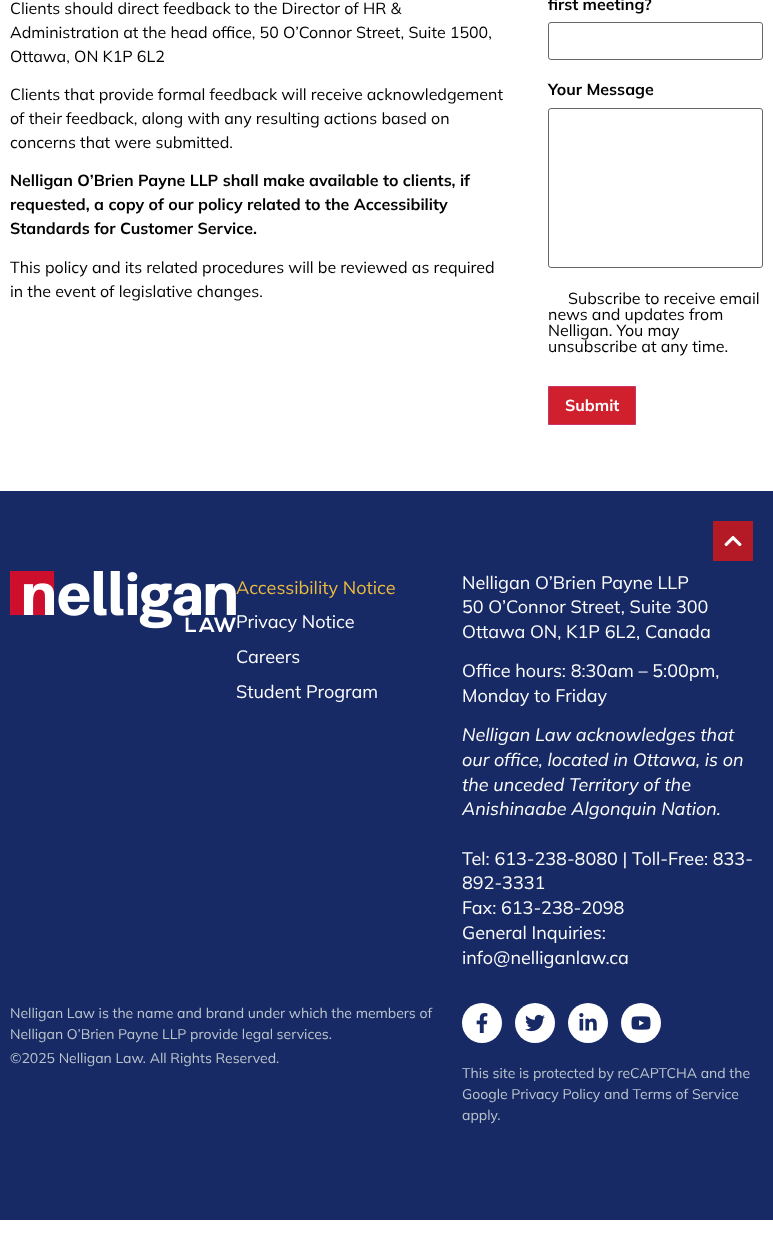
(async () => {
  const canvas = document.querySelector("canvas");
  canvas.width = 773;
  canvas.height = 1235;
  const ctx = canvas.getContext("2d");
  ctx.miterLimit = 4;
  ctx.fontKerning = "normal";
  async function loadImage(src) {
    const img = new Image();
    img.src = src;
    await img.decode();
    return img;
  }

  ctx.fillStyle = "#ffffff";
  ctx.fillRect(0, 0, 773, 1235);
  ctx.beginPath();
  ctx.roundRect(548.5, 22.5, 214, 37, 2.5);
  ctx.strokeStyle = "#666666";
  ctx.stroke();
  ctx.beginPath();
  ctx.roundRect(548.5, 108.5, 214, 159, 2.5);
  ctx.stroke();
  ctx.fillStyle = "#d0202e";
  ctx.beginPath();
  ctx.rect(548.5, 386.5, 87, 38);
  ctx.fill();
  ctx.strokeStyle = "#cc3366";
  ctx.stroke();
  ctx.fillStyle = "#172a66";
  ctx.fillRect(0, 491, 773, 729);
  ctx.fillStyle = "#b31a26";
  ctx.fillRect(713, 521, 40, 40);
  ctx.drawImage(await loadImage("img/1.png"), 724, 535, 18, 12);
  ctx.drawImage(await loadImage("img/2.png"), 10, 571, 226, 61);
  ctx.fillStyle = "#ffffff";
  ctx.beginPath();
  ctx.arc(482, 1023, 20, 0, Math.PI * 2);
  ctx.fill();
  ctx.drawImage(await loadImage("img/3.png"), 476, 1013, 12, 20);
  ctx.beginPath();
  ctx.arc(535, 1023, 20, 0, Math.PI * 2);
  ctx.fill();
  ctx.drawImage(await loadImage("img/4.png"), 525, 1014, 20, 18);
  ctx.beginPath();
  ctx.arc(588, 1023, 20, 0, Math.PI * 2);
  ctx.fill();
  ctx.drawImage(await loadImage("img/5.png"), 579, 1013, 18, 18);
  ctx.beginPath();
  ctx.arc(641, 1023, 20, 0, Math.PI * 2);
  ctx.fill();
  ctx.drawImage(await loadImage("img/6.png"), 631, 1016, 20, 14);
  ctx.font = "16px Mulish";
  ctx.fillStyle = "#000000";
  for (const [text, x, y] of [
    ["Clients should direct feedback to the Director of HR &", 10, 14],
    ["Administration at the head office, 50 O’Connor Street, Suite 1500,", 10, 38],
    ["Ottawa, ON K1P 6L2", 10, 62],
    ["Clients that provide formal feedback will receive acknowledgement", 10, 100],
    ["of their feedback, along with any resulting actions based on", 10, 124],
    ["concerns that were submitted.", 10, 148],
  ]) {
    ctx.fillText(text, x, y);
  }
  ctx.font = "bold 16px Mulish";
  for (const [text, x, y] of [
    ["Nelligan O’Brien Payne LLP shall make available to clients, if", 10, 186],
    ["requested, a copy of our policy related to the Accessibility", 10, 210],
    ["Standards for Customer Service.", 10, 234],
  ]) {
    ctx.fillText(text, x, y);
  }
  ctx.font = "16px Mulish";
  ctx.fillText("This policy and its related procedures will be reviewed as required", 10, 273);
  ctx.fillText("in the event of legislative changes.", 10, 297);
  ctx.font = "bold 16px Mulish";
  ctx.fillText("first meeting?", 548, 10);
  ctx.fillText("Your Message", 548, 95);
  ctx.font = "16px Mulish";
  for (const [text, x, y] of [
    ["Subscribe to receive email", 568, 304],
    ["news and updates from", 548, 320],
    ["Nelligan. You may", 548, 336],
    ["unsubscribe at any time.", 548, 352],
  ]) {
    ctx.fillText(text, x, y);
  }
  ctx.font = "bold 16px Mulish";
  ctx.fillStyle = "#ffffff";
  ctx.fillText("Submit", 565, 411);
  ctx.font = "18px Mulish";
  ctx.fillStyle = "#edbb3e";
  ctx.fillText("Accessibility Notice", 236, 594);
  ctx.fillStyle = "#ffffff";
  for (const [text, x, y] of [
    ["Privacy Notice", 236, 628],
    ["Careers", 236, 663],
    ["Student Program", 236, 698],
    ["Nelligan O’Brien Payne LLP", 462, 589],
    ["50 O’Connor Street, Suite 300", 462, 613],
    ["Ottawa ON, K1P 6L2, Canada", 462, 638],
    ["Office hours: 8:30am – 5:00pm,", 462, 677],
    ["Monday to Friday", 462, 702],
  ]) {
    ctx.fillText(text, x, y);
  }
  ctx.font = "italic 18px Mulish";
  for (const [text, x, y] of [
    ["Nelligan Law acknowledges that", 462, 741],
    ["our office, located in Ottawa, is on", 462, 766],
    ["the unceded Territory of the", 462, 791],
    ["Anishinaabe Algonquin Nation.", 462, 815],
  ]) {
    ctx.fillText(text, x, y);
  }
  ctx.font = "18px Mulish";
  for (const [text, x, y] of [
    ["Tel: 613-238-8080 | Toll-Free: 833-", 462, 865],
    ["892-3331", 462, 889],
    ["Fax: 613-238-2098", 462, 914],
    ["General Inquiries:", 462, 939],
    ["info@nelliganlaw.ca", 462, 964],
  ]) {
    ctx.fillText(text, x, y);
  }
  ctx.font = "14px Mulish";
  ctx.fillStyle = "#bbc6cc";
  for (const [text, x, y] of [
    ["Nelligan Law is the name and brand under which the members of", 10, 1018],
    ["Nelligan O’Brien Payne LLP provide legal services.", 10, 1039],
    ["©2025 Nelligan Law. All Rights Reserved.", 10, 1063],
    ["This site is protected by reCAPTCHA and the", 462, 1078],
    ["Google Privacy Policy and Terms of Service", 462, 1099],
    ["apply.", 462, 1120],
  ]) {
    ctx.fillText(text, x, y);
  }
})();
